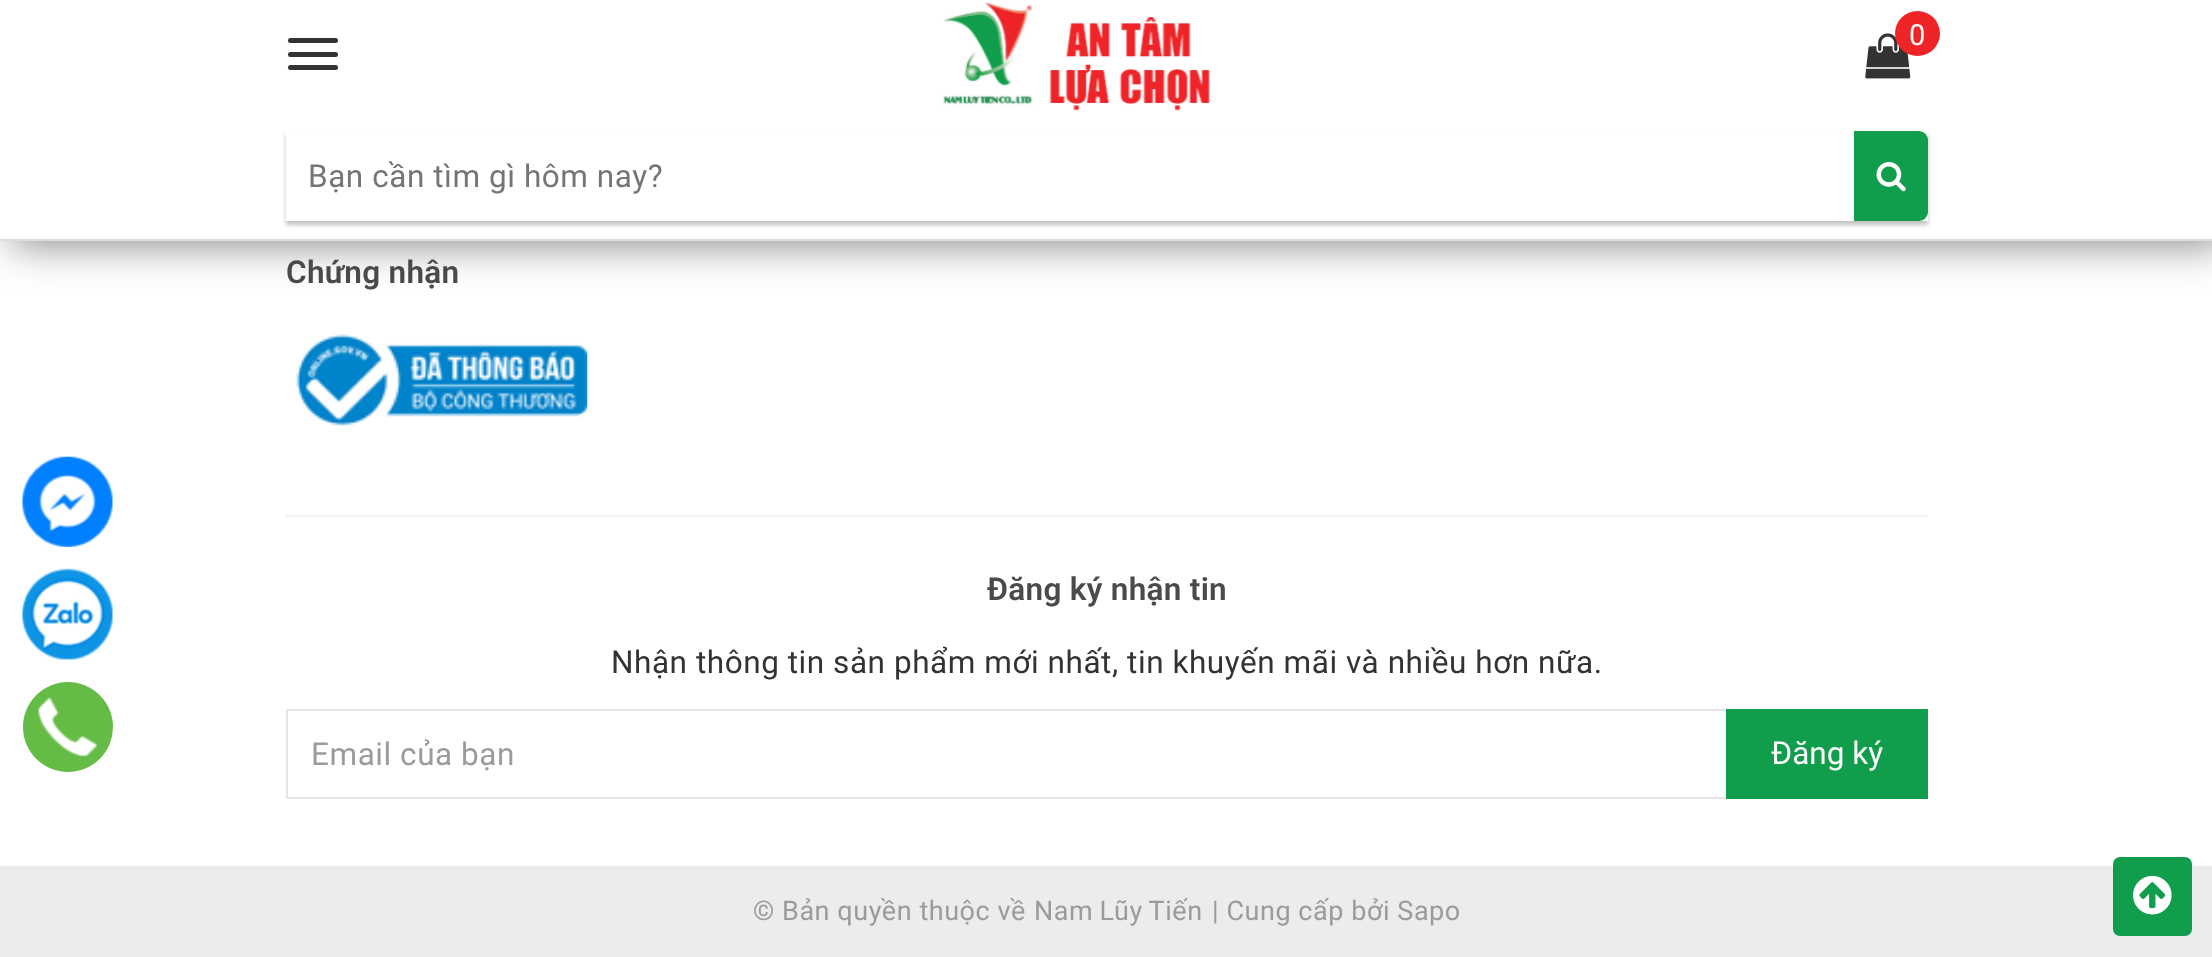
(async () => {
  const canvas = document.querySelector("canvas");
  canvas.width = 2212;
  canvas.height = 957;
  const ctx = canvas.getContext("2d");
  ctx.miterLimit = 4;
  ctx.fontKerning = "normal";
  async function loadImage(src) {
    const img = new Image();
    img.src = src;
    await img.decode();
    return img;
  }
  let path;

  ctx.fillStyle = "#ffffff";
  ctx.fillRect(0, 0, 2212, 957);
  ctx.fillStyle = "#888888";
  ctx.filter = "blur(20px)";
  ctx.beginPath();
  ctx.rect(11, 5, 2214, 240);
  ctx.fill();
  ctx.filter = "none";
  ctx.fillStyle = "#ffffff";
  ctx.fillRect(0, 0, 2212, 239);
  ctx.drawImage(await loadImage("img/1.png"), 943, 2, 267, 109);
  ctx.drawImage(await loadImage("img/2.png"), 1865, 33, 46, 46);
  ctx.fillStyle = "#ef2427";
  ctx.beginPath();
  ctx.arc(1917.5, 33.5, 22.5, 0, Math.PI * 2);
  ctx.fill();
  ctx.fillStyle = "#333333";
  ctx.beginPath();
  ctx.roundRect(288, 38, 50, 5, 2.5);
  ctx.fill();
  ctx.beginPath();
  ctx.roundRect(288, 52, 50, 5, 2.5);
  ctx.fill();
  ctx.beginPath();
  ctx.roundRect(288, 65, 50, 5, 2.5);
  ctx.fill();
  ctx.save();
  path = new Path2D("M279 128H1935V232H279ZM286 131H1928V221H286Z");
  ctx.clip(path, "evenodd");
  ctx.fillStyle = "rgba(0, 0, 0, 0.24)";
  ctx.filter = "blur(2px)";
  ctx.beginPath();
  ctx.rect(286, 135, 1642, 90);
  ctx.fill();
  ctx.filter = "none";
  ctx.restore();
  ctx.fillStyle = "#ffffff";
  ctx.beginPath();
  ctx.roundRect(286, 131, 1570, 90, [9, 0, 0, 9]);
  ctx.fill();
  ctx.fillStyle = "#109e4d";
  ctx.beginPath();
  ctx.roundRect(1854, 131, 74, 90, [0, 9, 9, 0]);
  ctx.fill();
  ctx.drawImage(await loadImage("img/3.png"), 1876, 162, 30, 30);
  ctx.fillStyle = "#dddddd";
  ctx.fillRect(0, 239, 2212, 2);
  ctx.drawImage(await loadImage("img/4.png"), 22, 456, 91, 91);
  ctx.drawImage(await loadImage("img/5.png"), 22, 568, 91, 92);
  ctx.fillStyle = "#64bc46";
  ctx.beginPath();
  ctx.arc(68, 727, 45, 0, Math.PI * 2);
  ctx.fill();
  ctx.drawImage(await loadImage("img/6.png"), 37, 697, 61, 60);
  ctx.drawImage(await loadImage("img/7.png"), 296, 334, 292, 92);
  ctx.fillStyle = "#f2f2f2";
  ctx.fillRect(286, 515, 1642, 2);
  ctx.strokeStyle = "#e5e5e5";
  ctx.lineWidth = 2;
  ctx.strokeRect(287, 710, 1440, 88);
  ctx.fillStyle = "#109e4d";
  ctx.fillRect(1726, 709, 202, 90);
  ctx.fillStyle = "#eaeced";
  ctx.fillRect(0, 866, 2212, 91);
  ctx.fillStyle = "#109e4d";
  ctx.beginPath();
  ctx.roundRect(2113, 857, 79, 79, 7);
  ctx.fill();
  ctx.drawImage(await loadImage("img/8.png"), 2133, 875, 39, 40);
  ctx.letterSpacing = "0.55px";
  ctx.font = "29px Roboto";
  ctx.fillStyle = "#ffffff";
  ctx.fillText("0", 1909, 45);
  ctx.font = "31.5px Roboto";
  ctx.fillStyle = "#757575";
  ctx.fillText("Bạn cần tìm gì hôm nay?", 308, 187);
  ctx.letterSpacing = "0.3px";
  ctx.font = "600 31.5px Roboto";
  ctx.fillStyle = "#4a4a4a";
  ctx.fillText("Chứng nhận", 286, 283);
  ctx.fillText("Đăng ký nhận tin", 987, 600);
  ctx.letterSpacing = "0.55px";
  ctx.font = "31.5px Roboto";
  ctx.fillStyle = "#333333";
  ctx.fillText("Nhận thông tin sản phẩm mới nhất, tin khuyến mãi và nhiều hơn nữa.", 611, 673);
  ctx.fillStyle = "#9b9b9b";
  ctx.fillText("Email của bạn", 311, 765);
  ctx.letterSpacing = "0px";
  ctx.fillStyle = "#ffffff";
  ctx.fillText("Đăng ký", 1771, 764);
  ctx.letterSpacing = "0.55px";
  ctx.font = "27px Roboto";
  ctx.fillStyle = "#9b9b9b";
  ctx.fillText("© Bản quyền thuộc về", 753, 920);
  ctx.wordSpacing = "-1px";
  ctx.fillText("Nam Lũy Tiến", 1034, 920);
  ctx.wordSpacing = "0px";
  ctx.fillText("| Cung cấp bởi Sapo", 1212, 920);
})();
